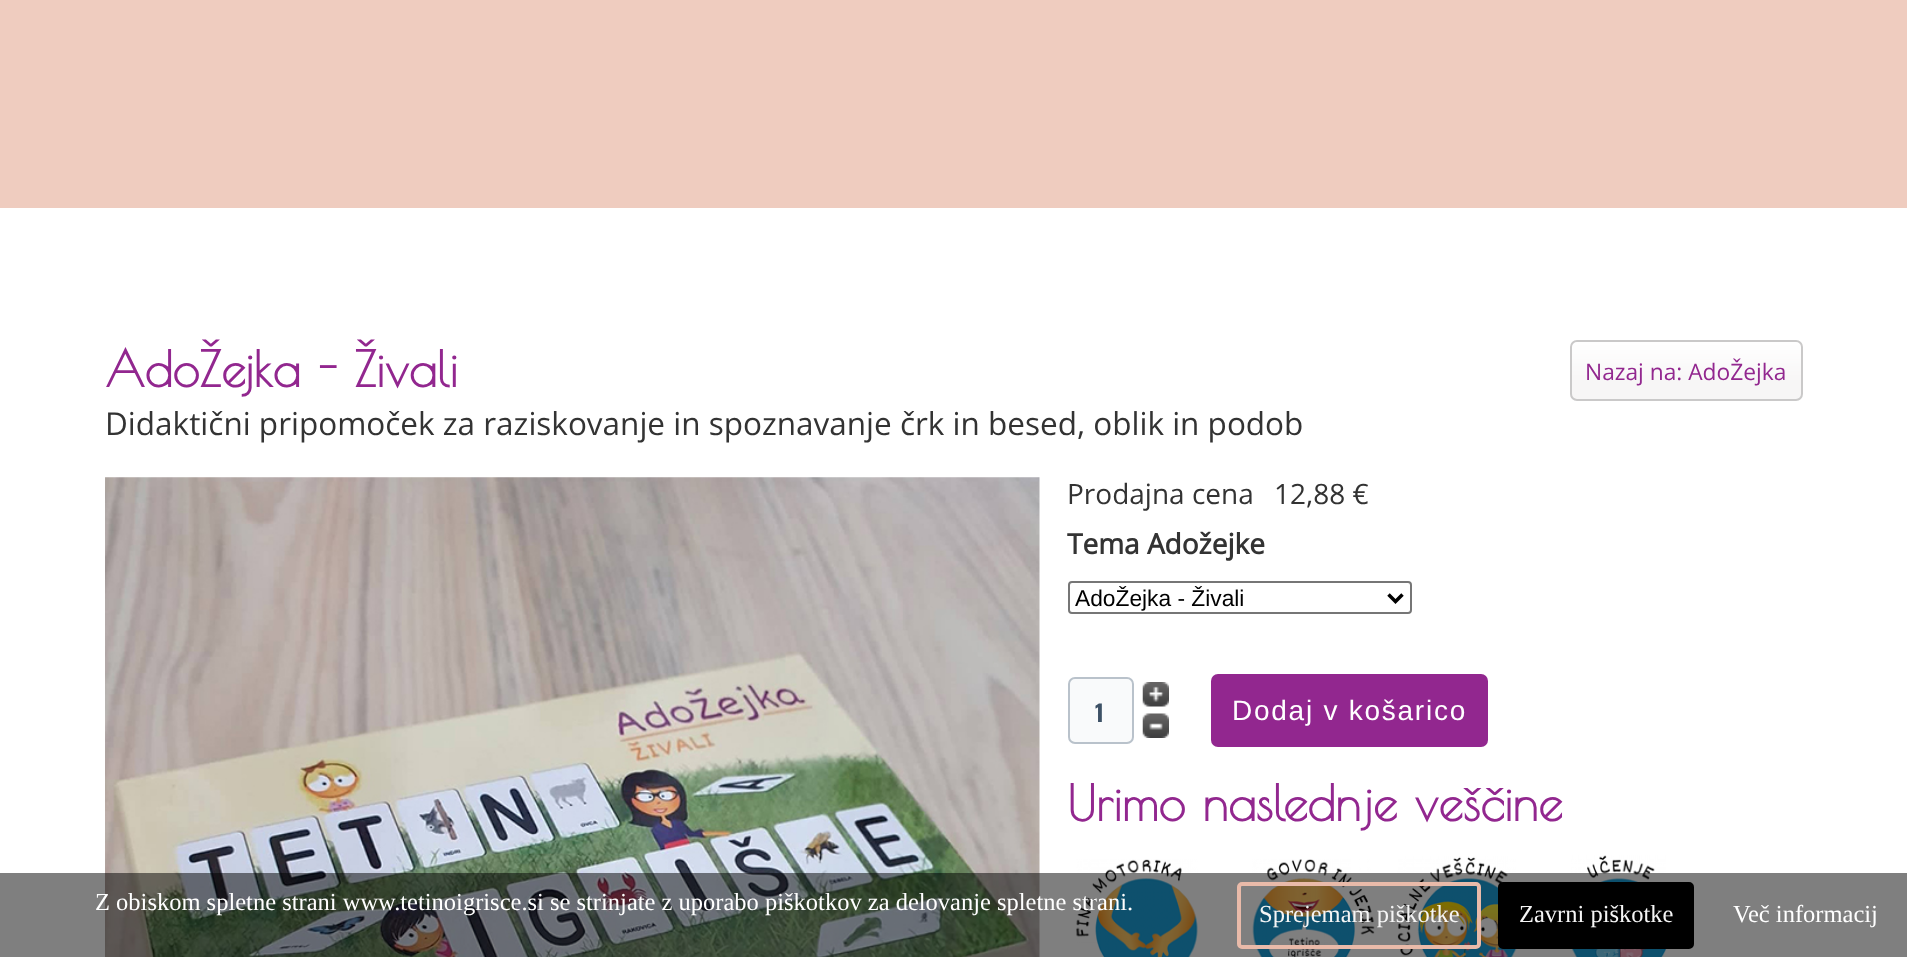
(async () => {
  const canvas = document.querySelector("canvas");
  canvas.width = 1907;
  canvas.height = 957;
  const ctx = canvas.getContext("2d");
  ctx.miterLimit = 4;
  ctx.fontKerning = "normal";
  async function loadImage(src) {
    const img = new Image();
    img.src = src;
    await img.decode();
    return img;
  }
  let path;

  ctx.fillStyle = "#ffffff";
  ctx.fillRect(0, 0, 1907, 957);
  ctx.fillStyle = "#efccbf";
  ctx.fillRect(0, 0, 1907, 208);
  ctx.drawImage(await loadImage("img/1.png"), 1570, 340, 233, 60);
  ctx.beginPath();
  ctx.roundRect(1571, 341, 231, 59, 6);
  ctx.strokeStyle = "#cac9c9";
  ctx.lineWidth = 2;
  ctx.stroke();
  ctx.drawImage(await loadImage("img/2.png"), 105, 477, 935, 480);
  ctx.beginPath();
  ctx.roundRect(1069, 582, 342, 31, 3);
  ctx.strokeStyle = "#767676";
  ctx.stroke();
  path = new Path2D("M1388.5 594.5L1395.5 601.5L1402.5 594.5");
  ctx.strokeStyle = "#000000";
  ctx.lineWidth = 3.5;
  ctx.stroke(path);
  ctx.fillStyle = "#f9fafb";
  ctx.beginPath();
  ctx.roundRect(1069, 678, 64, 65, 6);
  ctx.fill();
  ctx.strokeStyle = "#b9c2cb";
  ctx.lineWidth = 2;
  ctx.stroke();
  ctx.drawImage(await loadImage("img/3.png"), 1142, 682, 27, 25);
  ctx.drawImage(await loadImage("img/4.png"), 1142, 713, 27, 25);
  ctx.fillStyle = "#92278f";
  ctx.beginPath();
  ctx.roundRect(1211, 674, 277, 73, 7);
  ctx.fill();
  ctx.drawImage(await loadImage("img/5.png"), 1076, 859, 122, 98);
  ctx.drawImage(await loadImage("img/6.png"), 1252, 859, 123, 98);
  ctx.drawImage(await loadImage("img/7.png"), 1397, 856, 120, 101);
  ctx.drawImage(await loadImage("img/8.png"), 1571, 855, 96, 102);
  ctx.fillStyle = "rgba(0, 0, 0, 0.5)";
  ctx.fillRect(0, 873, 1907, 84);
  ctx.beginPath();
  ctx.roundRect(1239, 884, 240, 63, 3);
  ctx.strokeStyle = "#e9baa9";
  ctx.lineWidth = 4;
  ctx.stroke();
  ctx.fillStyle = "#000000";
  ctx.beginPath();
  ctx.roundRect(1500, 884, 192, 63, 3);
  ctx.fill();
  ctx.strokeStyle = "#000000";
  ctx.stroke();
  ctx.font = "bold 49px Poiret One";
  ctx.fillStyle = "#92278f";
  ctx.fillText("AdoŽejka - Živali", 105, 387);
  ctx.font = "22.75px Open Sans";
  ctx.fillText("Nazaj na: AdoŽejka", 1585, 380);
  ctx.font = "31.5px Open Sans";
  ctx.fillStyle = "#333333";
  ctx.fillText("Didaktični pripomoček za raziskovanje in spoznavanje črk in besed, oblik in podob", 105, 435);
  ctx.font = "28px Open Sans";
  ctx.fillText("Prodajna cena", 1067, 504);
  ctx.fillText("12,88 €", 1274, 504);
  ctx.font = "bold 28px Open Sans";
  ctx.fillText("Tema Adožejke", 1067, 554);
  ctx.font = "22.75px Liberation Sans";
  ctx.fillStyle = "#000000";
  ctx.fillText("AdoŽejka - Živali", 1075, 606);
  ctx.font = "bold 22.75px Oswald";
  ctx.fillStyle = "#3d5166";
  ctx.fillText("1", 1095, 722);
  ctx.letterSpacing = "1.75px";
  ctx.font = "28px Liberation Sans";
  ctx.fillStyle = "#ffffff";
  ctx.fillText("Dodaj v košarico", 1232, 720);
  ctx.letterSpacing = "0px";
  ctx.font = "bold 49px Poiret One";
  ctx.fillStyle = "#92278f";
  ctx.fillText("Urimo naslednje veščine", 1067, 821);
  ctx.font = "24.5px Liberation Serif";
  ctx.fillStyle = "#ffffff";
  ctx.fillText("Z obiskom spletne strani www.tetinoigrisce.si se strinjate z uporabo piškotkov za delovanje spletne strani.", 95, 910);
  ctx.fillStyle = "#f5f5f5";
  ctx.fillText("Sprejemam piškotke", 1259, 922);
  ctx.fillText("Zavrni piškotke", 1519, 922);
  ctx.fillStyle = "#ffffff";
  ctx.fillText("Več informacij", 1733, 922);
})();
